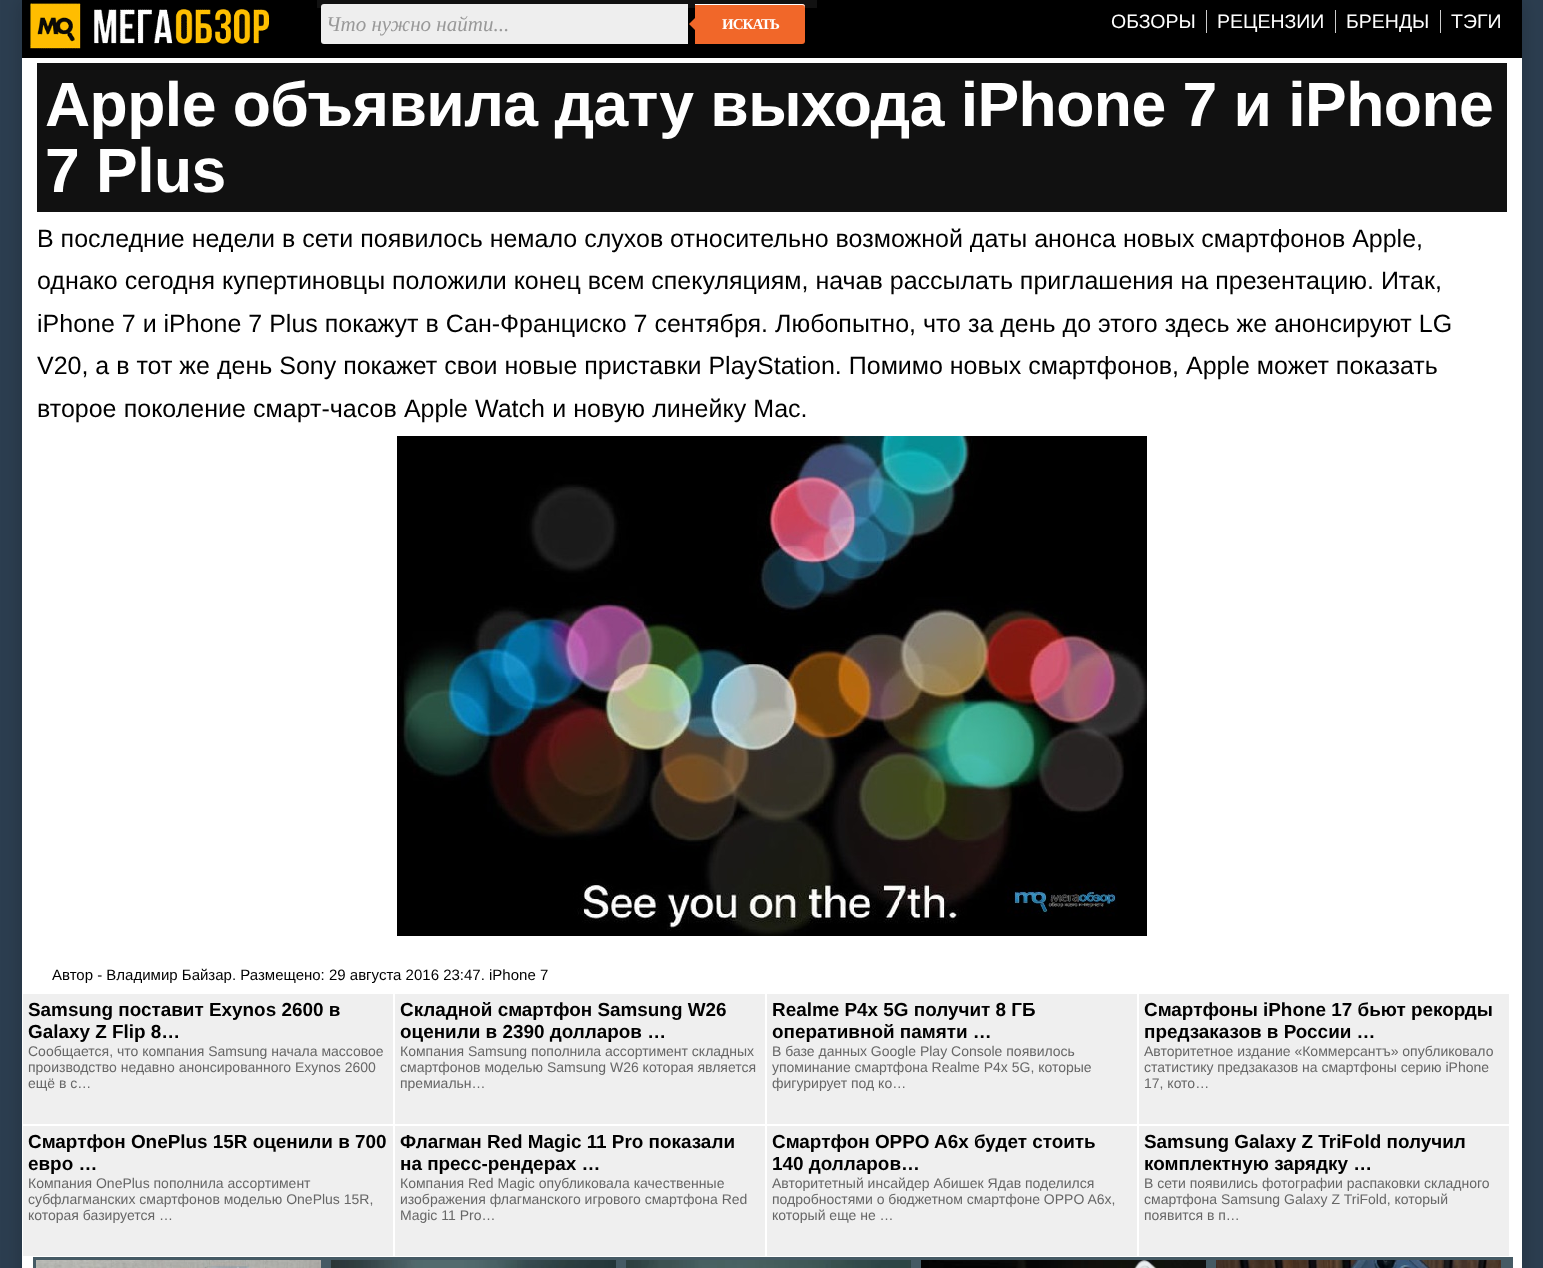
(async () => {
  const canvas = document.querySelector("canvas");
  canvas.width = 1543;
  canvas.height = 1268;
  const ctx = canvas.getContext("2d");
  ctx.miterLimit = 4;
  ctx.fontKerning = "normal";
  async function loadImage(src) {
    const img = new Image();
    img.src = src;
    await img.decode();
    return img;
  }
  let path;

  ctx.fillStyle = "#2c3e50";
  ctx.fillRect(0, 0, 1543, 1268);
  ctx.fillStyle = "rgba(0, 0, 0, 0.2)";
  ctx.filter = "blur(10px)";
  ctx.beginPath();
  ctx.rect(22, 0, 1500, 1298);
  ctx.fill();
  ctx.filter = "none";
  ctx.fillStyle = "#ffffff";
  ctx.fillRect(22, 58, 1500, 1210);
  ctx.fillStyle = "#000000";
  ctx.fillRect(22, 0, 1500, 58);
  ctx.drawImage(await loadImage("img/1.png"), 30, 3, 240, 46);
  ctx.fillStyle = "#111111";
  ctx.fillRect(317, 0, 500, 8);
  ctx.fillStyle = "#eeeeee";
  ctx.beginPath();
  ctx.roundRect(321, 4, 367, 40, [3, 0, 0, 3]);
  ctx.fill();
  ctx.fillStyle = "#f16729";
  ctx.beginPath();
  ctx.roundRect(695, 4, 110, 40, [0, 3, 3, 0]);
  ctx.fill();
  ctx.fillStyle = "#ffffff";
  path = new Path2D("M695 5H802C804 5 805 6 805 8V7C805 5 804 4 802 4H695Z");
  ctx.fill(path);
  ctx.fillStyle = "#f16729";
  path = new Path2D("M697 16V32L689 24Z");
  ctx.fill(path);
  for (const [x, y, w, h, color] of [
    [1206, 10, 1, 23, "#cccccc"],
    [1335, 10, 1, 23, "#cccccc"],
    [1440, 10, 1, 23, "#cccccc"],
    [37, 63, 1470, 149, "#111111"],
  ]) {
    ctx.fillStyle = color;
    ctx.fillRect(x, y, w, h);
  }
  ctx.drawImage(await loadImage("img/2.png"), 397, 436, 750, 500);
  for (const [x, y, w, h, color] of [
    [23, 994, 370, 130, "#efefef"],
    [395, 994, 370, 130, "#efefef"],
    [767, 994, 370, 130, "#efefef"],
    [1139, 994, 370, 130, "#efefef"],
    [23, 1126, 370, 130, "#efefef"],
    [395, 1126, 370, 130, "#efefef"],
    [767, 1126, 370, 130, "#efefef"],
    [1139, 1126, 370, 130, "#efefef"],
    [33, 1257, 1480, 11, "#455a64"],
  ]) {
    ctx.fillStyle = color;
    ctx.fillRect(x, y, w, h);
  }
  ctx.drawImage(await loadImage("img/3.png"), 36, 1260, 285, 8);
  ctx.drawImage(await loadImage("img/4.png"), 331, 1260, 285, 8);
  ctx.drawImage(await loadImage("img/5.png"), 626, 1260, 285, 8);
  ctx.drawImage(await loadImage("img/6.png"), 921, 1260, 285, 8);
  ctx.drawImage(await loadImage("img/7.png"), 1216, 1260, 285, 8);
  ctx.font = "italic 21px Liberation Serif";
  ctx.fillStyle = "#999999";
  ctx.fillText("Что нужно найти...", 326, 31);
  ctx.letterSpacing = "-1px";
  ctx.font = "bold 15px Liberation Serif";
  ctx.fillStyle = "#ffffff";
  ctx.fillText("ИСКАТЬ", 722, 29);
  ctx.letterSpacing = "0px";
  ctx.font = "19.5px Liberation Sans";
  for (const [text, x, y] of [
    ["ОБЗОРЫ", 1111, 28],
    ["РЕЦЕНЗИИ", 1217, 28],
    ["БРЕНДЫ", 1346, 28],
    ["ТЭГИ", 1451, 28],
  ]) {
    ctx.fillText(text, x, y);
  }
  ctx.letterSpacing = "-0.55px";
  ctx.font = "bold 62.5px Liberation Sans";
  ctx.fillText("Apple объявила дату выхода iPhone 7 и iPhone", 45, 126);
  ctx.fillText("7 Plus", 45, 192);
  ctx.letterSpacing = "0px";
  ctx.font = "25px Liberation Sans";
  ctx.fillStyle = "#000000";
  for (const [text, x, y] of [
    ["В последние недели в сети появилось немало слухов относительно возможной даты анонса новых смартфонов Apple,", 37, 247],
    ["однако сегодня купертиновцы положили конец всем спекуляциям, начав рассылать приглашения на презентацию. Итак,", 37, 289],
    ["iPhone 7 и iPhone 7 Plus покажут в Сан-Франциско 7 сентября. Любопытно, что за день до этого здесь же анонсируют LG", 37, 332],
    ["V20, а в тот же день Sony покажет свои новые приставки PlayStation. Помимо новых смартфонов, Apple может показать", 37, 374],
  ]) {
    ctx.fillText(text, x, y);
  }
  ctx.wordSpacing = "0.25px";
  ctx.fillText("второе поколение смарт-часов Apple Watch и новую линейку Mac.", 37, 417);
  ctx.wordSpacing = "0px";
  ctx.font = "15px Liberation Sans";
  ctx.fillText("Автор - Владимир Байзар. Размещено: 29 августа 2016 23:47. iPhone 7", 52, 980);
  ctx.font = "bold 18.9px Liberation Sans";
  ctx.fillText("Samsung поставит Exynos 2600 в", 28, 1016);
  ctx.fillText("Galaxy Z Flip 8…", 28, 1038);
  ctx.font = "14px Liberation Sans";
  ctx.fillStyle = "#666666";
  for (const [text, x, y] of [
    ["Сообщается, что компания Samsung начала массовое", 28, 1056],
    ["производство недавно анонсированного Exynos 2600", 28, 1072],
    ["ещё в с…", 28, 1088],
  ]) {
    ctx.fillText(text, x, y);
  }
  ctx.font = "bold 18.9px Liberation Sans";
  ctx.fillStyle = "#000000";
  ctx.fillText("Складной смартфон Samsung W26", 400, 1016);
  ctx.fillText("оценили в 2390 долларов …", 400, 1038);
  ctx.font = "14px Liberation Sans";
  ctx.fillStyle = "#666666";
  for (const [text, x, y] of [
    ["Компания Samsung пополнила ассортимент складных", 400, 1056],
    ["смартфонов моделью Samsung W26 которая является", 400, 1072],
    ["премиальн…", 400, 1088],
  ]) {
    ctx.fillText(text, x, y);
  }
  ctx.font = "bold 18.9px Liberation Sans";
  ctx.fillStyle = "#000000";
  ctx.fillText("Realme P4x 5G получит 8 ГБ", 772, 1016);
  ctx.fillText("оперативной памяти …", 772, 1038);
  ctx.font = "14px Liberation Sans";
  ctx.fillStyle = "#666666";
  for (const [text, x, y] of [
    ["В базе данных Google Play Console появилось", 772, 1056],
    ["упоминание смартфона Realme P4x 5G, которые", 772, 1072],
    ["фигурирует под ко…", 772, 1088],
  ]) {
    ctx.fillText(text, x, y);
  }
  ctx.font = "bold 18.9px Liberation Sans";
  ctx.fillStyle = "#000000";
  ctx.fillText("Смартфоны iPhone 17 бьют рекорды", 1144, 1016);
  ctx.fillText("предзаказов в России …", 1144, 1038);
  ctx.font = "14px Liberation Sans";
  ctx.fillStyle = "#666666";
  for (const [text, x, y] of [
    ["Авторитетное издание «Коммерсантъ» опубликовало", 1144, 1056],
    ["статистику предзаказов на смартфоны серию iPhone", 1144, 1072],
    ["17, кото…", 1144, 1088],
  ]) {
    ctx.fillText(text, x, y);
  }
  ctx.font = "bold 18.9px Liberation Sans";
  ctx.fillStyle = "#000000";
  ctx.fillText("Смартфон OnePlus 15R оценили в 700", 28, 1148);
  ctx.fillText("евро …", 28, 1170);
  ctx.font = "14px Liberation Sans";
  ctx.fillStyle = "#666666";
  for (const [text, x, y] of [
    ["Компания OnePlus пополнила ассортимент", 28, 1188],
    ["субфлагманских смартфонов моделью OnePlus 15R,", 28, 1204],
    ["которая базируется …", 28, 1220],
  ]) {
    ctx.fillText(text, x, y);
  }
  ctx.font = "bold 18.9px Liberation Sans";
  ctx.fillStyle = "#000000";
  ctx.fillText("Флагман Red Magic 11 Pro показали", 400, 1148);
  ctx.fillText("на пресс-рендерах …", 400, 1170);
  ctx.font = "14px Liberation Sans";
  ctx.fillStyle = "#666666";
  for (const [text, x, y] of [
    ["Компания Red Magic опубликовала качественные", 400, 1188],
    ["изображения флагманского игрового смартфона Red", 400, 1204],
    ["Magic 11 Pro…", 400, 1220],
  ]) {
    ctx.fillText(text, x, y);
  }
  ctx.font = "bold 18.9px Liberation Sans";
  ctx.fillStyle = "#000000";
  ctx.fillText("Смартфон OPPO A6x будет стоить", 772, 1148);
  ctx.fillText("140 долларов…", 772, 1170);
  ctx.font = "14px Liberation Sans";
  ctx.fillStyle = "#666666";
  for (const [text, x, y] of [
    ["Авторитетный инсайдер Абишек Ядав поделился", 772, 1188],
    ["подробностями о бюджетном смартфоне OPPO A6x,", 772, 1204],
    ["который еще не …", 772, 1220],
  ]) {
    ctx.fillText(text, x, y);
  }
  ctx.font = "bold 18.9px Liberation Sans";
  ctx.fillStyle = "#000000";
  ctx.fillText("Samsung Galaxy Z TriFold получил", 1144, 1148);
  ctx.fillText("комплектную зарядку …", 1144, 1170);
  ctx.font = "14px Liberation Sans";
  ctx.fillStyle = "#666666";
  for (const [text, x, y] of [
    ["В сети появились фотографии распаковки складного", 1144, 1188],
    ["смартфона Samsung Galaxy Z TriFold, который", 1144, 1204],
    ["появится в п…", 1144, 1220],
  ]) {
    ctx.fillText(text, x, y);
  }
})();
